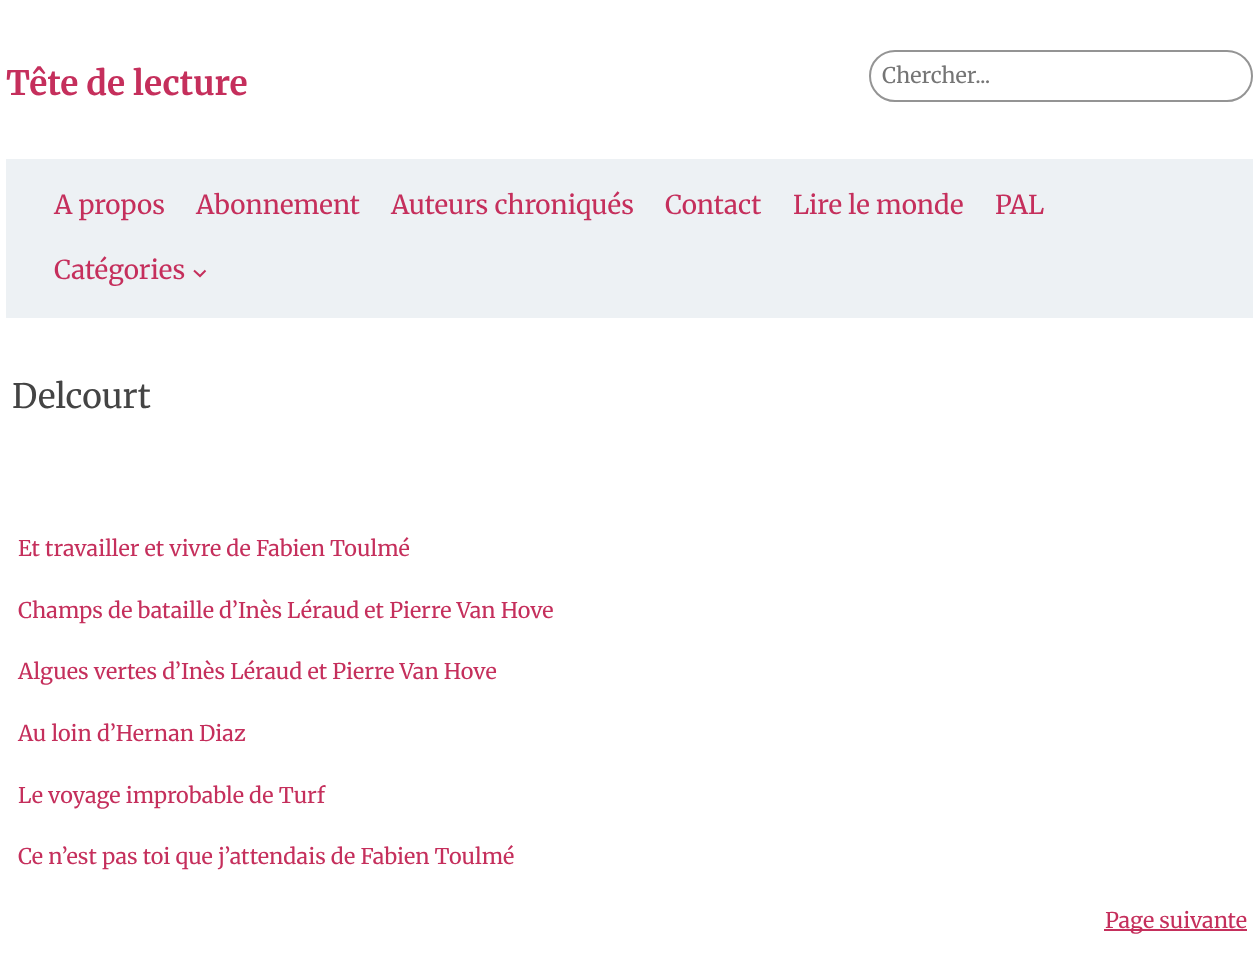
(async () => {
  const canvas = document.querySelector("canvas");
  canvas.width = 1258;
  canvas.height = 962;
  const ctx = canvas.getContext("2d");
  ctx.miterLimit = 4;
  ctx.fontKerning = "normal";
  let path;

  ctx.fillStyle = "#ffffff";
  ctx.fillRect(0, 0, 1258, 962);
  ctx.beginPath();
  ctx.roundRect(870, 51, 382, 50, 25);
  ctx.strokeStyle = "#949494";
  ctx.lineWidth = 2;
  ctx.stroke();
  ctx.fillStyle = "#edf1f4";
  ctx.fillRect(6, 159, 1247, 159);
  path = new Path2D("M194 270.5L200 276L205.5 270.5");
  ctx.strokeStyle = "#c52f5c";
  ctx.stroke(path);
  ctx.fillStyle = "#c52f5c";
  ctx.fillRect(1104, 929, 143, 2);
  ctx.font = "bold 33.5px Merriweather";
  ctx.fillText("Tête de lecture", 6, 95);
  ctx.font = "300 21.6px Merriweather";
  ctx.fillStyle = "#757575";
  ctx.fillText("Chercher...", 882, 83);
  ctx.font = "300 26px Merriweather";
  ctx.fillStyle = "#c52f5c";
  for (const [text, x, y] of [
    ["A propos", 54, 214],
    ["Abonnement", 196, 214],
    ["Auteurs chroniqués", 391, 214],
    ["Contact", 665, 214],
    ["Lire le monde", 793, 214],
    ["PAL", 995, 214],
    ["Catégories", 54, 279],
  ]) {
    ctx.fillText(text, x, y);
  }
  ctx.font = "300 33.5px Merriweather";
  ctx.fillStyle = "#444444";
  ctx.fillText("Delcourt", 12, 408);
  ctx.font = "300 21.6px Merriweather";
  ctx.fillStyle = "#c52f5c";
  for (const [text, x, y] of [
    ["Et travailler et vivre de Fabien Toulmé", 18, 556],
    ["Champs de bataille d’Inès Léraud et Pierre Van Hove", 18, 618],
    ["Algues vertes d’Inès Léraud et Pierre Van Hove", 18, 679],
    ["Au loin d’Hernan Diaz", 18, 741],
    ["Le voyage improbable de Turf", 18, 803],
    ["Ce n’est pas toi que j’attendais de Fabien Toulmé", 18, 864],
    ["Page suivante", 1105, 928],
  ]) {
    ctx.fillText(text, x, y);
  }
})();
